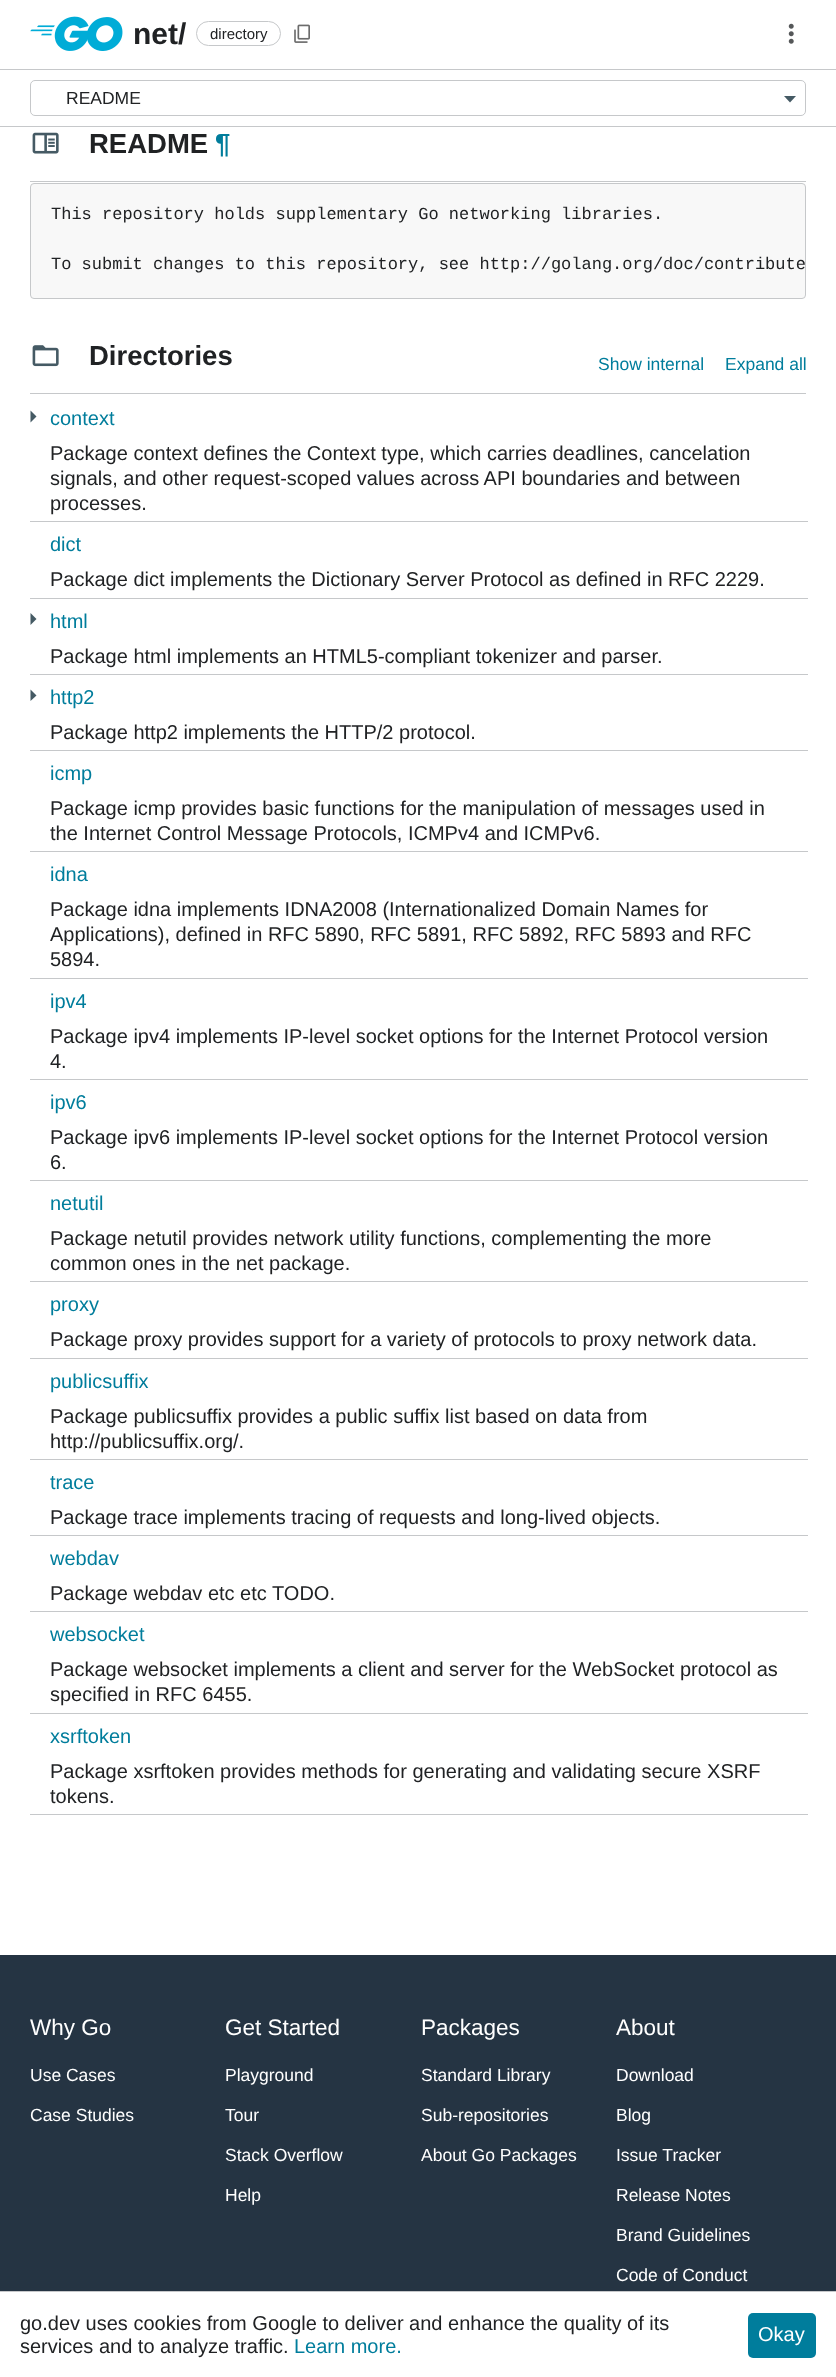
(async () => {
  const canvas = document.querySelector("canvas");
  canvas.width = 836;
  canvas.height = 2377;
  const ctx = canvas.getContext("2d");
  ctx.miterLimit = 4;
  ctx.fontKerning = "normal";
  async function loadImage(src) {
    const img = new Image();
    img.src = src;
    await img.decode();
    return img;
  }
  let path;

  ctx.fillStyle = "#ffffff";
  ctx.fillRect(0, 0, 836, 2377);
  ctx.fillStyle = "#c6c8ca";
  ctx.fillRect(0, 69, 836, 1);
  ctx.drawImage(await loadImage("img/1.png"), 30, 16, 93, 35);
  ctx.beginPath();
  ctx.roundRect(196.5, 21.5, 84, 24, 12);
  ctx.strokeStyle = "#c6c8ca";
  ctx.stroke();
  ctx.drawImage(await loadImage("img/2.png"), 294, 24, 16, 19);
  ctx.drawImage(await loadImage("img/3.png"), 788, 23, 6, 21);
  ctx.fillRect(0, 126, 836, 1);
  ctx.fillStyle = "#455a64";
  path = new Path2D("M784 96L790 102.5L796 96Z");
  ctx.fill(path);
  ctx.beginPath();
  ctx.roundRect(30.5, 80.5, 775, 35, 4.5);
  ctx.stroke();
  ctx.fillStyle = "#c6c8ca";
  ctx.fillRect(30, 181, 776, 1);
  ctx.drawImage(await loadImage("img/4.png"), 32, 132, 27, 22);
  ctx.fillStyle = "#f8f8f8";
  ctx.beginPath();
  ctx.roundRect(30.5, 183.5, 775, 115, 3.5);
  ctx.fill();
  ctx.stroke();
  ctx.fillStyle = "#c6c8ca";
  ctx.fillRect(30, 393, 776, 1);
  ctx.drawImage(await loadImage("img/5.png"), 32, 345, 27, 22);
  ctx.fillRect(30, 521, 778, 1);
  ctx.fillStyle = "#455a64";
  path = new Path2D("M30.5 422.5L36.5 416.5L30.5 410.5Z");
  ctx.fill(path);
  ctx.fillStyle = "#c6c8ca";
  ctx.fillRect(30, 598, 778, 1);
  ctx.fillRect(30, 674, 778, 1);
  ctx.fillStyle = "#455a64";
  path = new Path2D("M30.5 625L36.5 619L30.5 613Z");
  ctx.fill(path);
  ctx.fillStyle = "#c6c8ca";
  ctx.fillRect(30, 750, 778, 1);
  ctx.fillStyle = "#455a64";
  path = new Path2D("M30.5 701L36.5 695.5L30.5 689.5Z");
  ctx.fill(path);
  for (const [x, y, w, h, color] of [
    [30, 851, 778, 1, "#c6c8ca"],
    [30, 978, 778, 1, "#c6c8ca"],
    [30, 1079, 778, 1, "#c6c8ca"],
    [30, 1180, 778, 1, "#c6c8ca"],
    [30, 1281, 778, 1, "#c6c8ca"],
    [30, 1358, 778, 1, "#c6c8ca"],
    [30, 1459, 778, 1, "#c6c8ca"],
    [30, 1535, 778, 1, "#c6c8ca"],
    [30, 1611, 778, 1, "#c6c8ca"],
    [30, 1713, 778, 1, "#c6c8ca"],
    [30, 1814, 778, 1, "#c6c8ca"],
    [0, 1955, 836, 336, "#253443"],
    [0, 2291, 836, 1, "#c6c8ca"],
  ]) {
    ctx.fillStyle = color;
    ctx.fillRect(x, y, w, h);
  }
  ctx.fillStyle = "#007d9c";
  ctx.beginPath();
  ctx.roundRect(748, 2313, 68, 45, 5);
  ctx.fill();
  ctx.font = "bold 30px Liberation Sans";
  ctx.fillStyle = "#202224";
  ctx.fillText("net/", 133, 44);
  ctx.font = "15px Liberation Sans";
  ctx.fillText("directory", 210, 39);
  ctx.font = "17.5px Liberation Sans";
  ctx.fillText("README", 66, 104);
  ctx.font = "bold 27.5px Liberation Sans";
  ctx.fillText("README", 89, 153);
  ctx.fillStyle = "#007d9c";
  ctx.fillText("¶", 215, 153);
  ctx.font = "17px Liberation Mono";
  ctx.fillStyle = "#202224";
  ctx.fillText("This repository holds supplementary Go networking libraries.", 51, 219);
  ctx.fillText("To submit changes to this repository, see http://golang.org/doc/contribute", 51, 269);
  ctx.font = "bold 27.5px Liberation Sans";
  ctx.fillText("Directories", 89, 365);
  ctx.font = "17.5px Liberation Sans";
  ctx.fillStyle = "#007d9c";
  ctx.fillText("Show internal", 598, 370);
  ctx.fillText("Expand all", 725, 370);
  ctx.font = "20px Liberation Sans";
  ctx.fillText("context", 50, 425);
  ctx.fillStyle = "#202224";
  for (const [text, x, y] of [
    ["Package context defines the Context type, which carries deadlines, cancelation", 50, 460],
    ["signals, and other request-scoped values across API boundaries and between", 50, 485],
    ["processes.", 50, 510],
  ]) {
    ctx.fillText(text, x, y);
  }
  ctx.fillStyle = "#007d9c";
  ctx.fillText("dict", 50, 551);
  ctx.fillStyle = "#202224";
  ctx.fillText("Package dict implements the Dictionary Server Protocol as defined in RFC 2229.", 50, 586);
  ctx.fillStyle = "#007d9c";
  ctx.fillText("html", 50, 628);
  ctx.fillStyle = "#202224";
  ctx.fillText("Package html implements an HTML5-compliant tokenizer and parser.", 50, 663);
  ctx.fillStyle = "#007d9c";
  ctx.fillText("http2", 50, 704);
  ctx.fillStyle = "#202224";
  ctx.fillText("Package http2 implements the HTTP/2 protocol.", 50, 739);
  ctx.fillStyle = "#007d9c";
  ctx.fillText("icmp", 50, 780);
  ctx.fillStyle = "#202224";
  ctx.fillText("Package icmp provides basic functions for the manipulation of messages used in", 50, 815);
  ctx.fillText("the Internet Control Message Protocols, ICMPv4 and ICMPv6.", 50, 840);
  ctx.fillStyle = "#007d9c";
  ctx.fillText("idna", 50, 881);
  ctx.fillStyle = "#202224";
  for (const [text, x, y] of [
    ["Package idna implements IDNA2008 (Internationalized Domain Names for", 50, 916],
    ["Applications), defined in RFC 5890, RFC 5891, RFC 5892, RFC 5893 and RFC", 50, 941],
    ["5894.", 50, 966],
  ]) {
    ctx.fillText(text, x, y);
  }
  ctx.fillStyle = "#007d9c";
  ctx.fillText("ipv4", 50, 1008);
  ctx.fillStyle = "#202224";
  ctx.fillText("Package ipv4 implements IP-level socket options for the Internet Protocol version", 50, 1043);
  ctx.fillText("4.", 50, 1068);
  ctx.fillStyle = "#007d9c";
  ctx.fillText("ipv6", 50, 1109);
  ctx.fillStyle = "#202224";
  ctx.fillText("Package ipv6 implements IP-level socket options for the Internet Protocol version", 50, 1144);
  ctx.fillText("6.", 50, 1169);
  ctx.fillStyle = "#007d9c";
  ctx.fillText("netutil", 50, 1210);
  ctx.fillStyle = "#202224";
  ctx.fillText("Package netutil provides network utility functions, complementing the more", 50, 1245);
  ctx.fillText("common ones in the net package.", 50, 1270);
  ctx.fillStyle = "#007d9c";
  ctx.fillText("proxy", 50, 1311);
  ctx.fillStyle = "#202224";
  ctx.fillText("Package proxy provides support for a variety of protocols to proxy network data.", 50, 1346);
  ctx.fillStyle = "#007d9c";
  ctx.fillText("publicsuffix", 50, 1388);
  ctx.fillStyle = "#202224";
  ctx.fillText("Package publicsuffix provides a public suffix list based on data from", 50, 1423);
  ctx.fillText("http://publicsuffix.org/.", 50, 1448);
  ctx.fillStyle = "#007d9c";
  ctx.fillText("trace", 50, 1489);
  ctx.fillStyle = "#202224";
  ctx.fillText("Package trace implements tracing of requests and long-lived objects.", 50, 1524);
  ctx.fillStyle = "#007d9c";
  ctx.fillText("webdav", 50, 1565);
  ctx.fillStyle = "#202224";
  ctx.fillText("Package webdav etc etc TODO.", 50, 1600);
  ctx.fillStyle = "#007d9c";
  ctx.fillText("websocket", 50, 1641);
  ctx.fillStyle = "#202224";
  ctx.fillText("Package websocket implements a client and server for the WebSocket protocol as", 50, 1676);
  ctx.fillText("specified in RFC 6455.", 50, 1701);
  ctx.fillStyle = "#007d9c";
  ctx.fillText("xsrftoken", 50, 1743);
  ctx.fillStyle = "#202224";
  ctx.fillText("Package xsrftoken provides methods for generating and validating secure XSRF", 50, 1778);
  ctx.fillText("tokens.", 50, 1803);
  ctx.font = "22.5px Liberation Sans";
  ctx.fillStyle = "#ffffff";
  ctx.fillText("Why Go", 30, 2035);
  ctx.font = "17.5px Liberation Sans";
  ctx.fillText("Use Cases", 30, 2081);
  ctx.fillText("Case Studies", 30, 2121);
  ctx.font = "22.5px Liberation Sans";
  ctx.fillText("Get Started", 225, 2035);
  ctx.font = "17.5px Liberation Sans";
  for (const [text, x, y] of [
    ["Playground", 225, 2081],
    ["Tour", 225, 2121],
    ["Stack Overflow", 225, 2161],
    ["Help", 225, 2201],
  ]) {
    ctx.fillText(text, x, y);
  }
  ctx.font = "22.5px Liberation Sans";
  ctx.fillText("Packages", 421, 2035);
  ctx.font = "17.5px Liberation Sans";
  for (const [text, x, y] of [
    ["Standard Library", 421, 2081],
    ["Sub-repositories", 421, 2121],
    ["About Go Packages", 421, 2161],
  ]) {
    ctx.fillText(text, x, y);
  }
  ctx.font = "22.5px Liberation Sans";
  ctx.fillText("About", 616, 2035);
  ctx.font = "17.5px Liberation Sans";
  for (const [text, x, y] of [
    ["Download", 616, 2081],
    ["Blog", 616, 2121],
    ["Issue Tracker", 616, 2161],
    ["Release Notes", 616, 2201],
    ["Brand Guidelines", 616, 2241],
    ["Code of Conduct", 616, 2281],
  ]) {
    ctx.fillText(text, x, y);
  }
  ctx.font = "20px Liberation Sans";
  ctx.fillStyle = "#202224";
  ctx.fillText("go.dev uses cookies from Google to deliver and enhance the quality of its", 20, 2330);
  ctx.fillText("services and to analyze traffic.", 20, 2353);
  ctx.fillStyle = "#007d9c";
  ctx.fillText("Learn more.", 294, 2353);
  ctx.fillStyle = "#ffffff";
  ctx.fillText("Okay", 758, 2341);
})();
